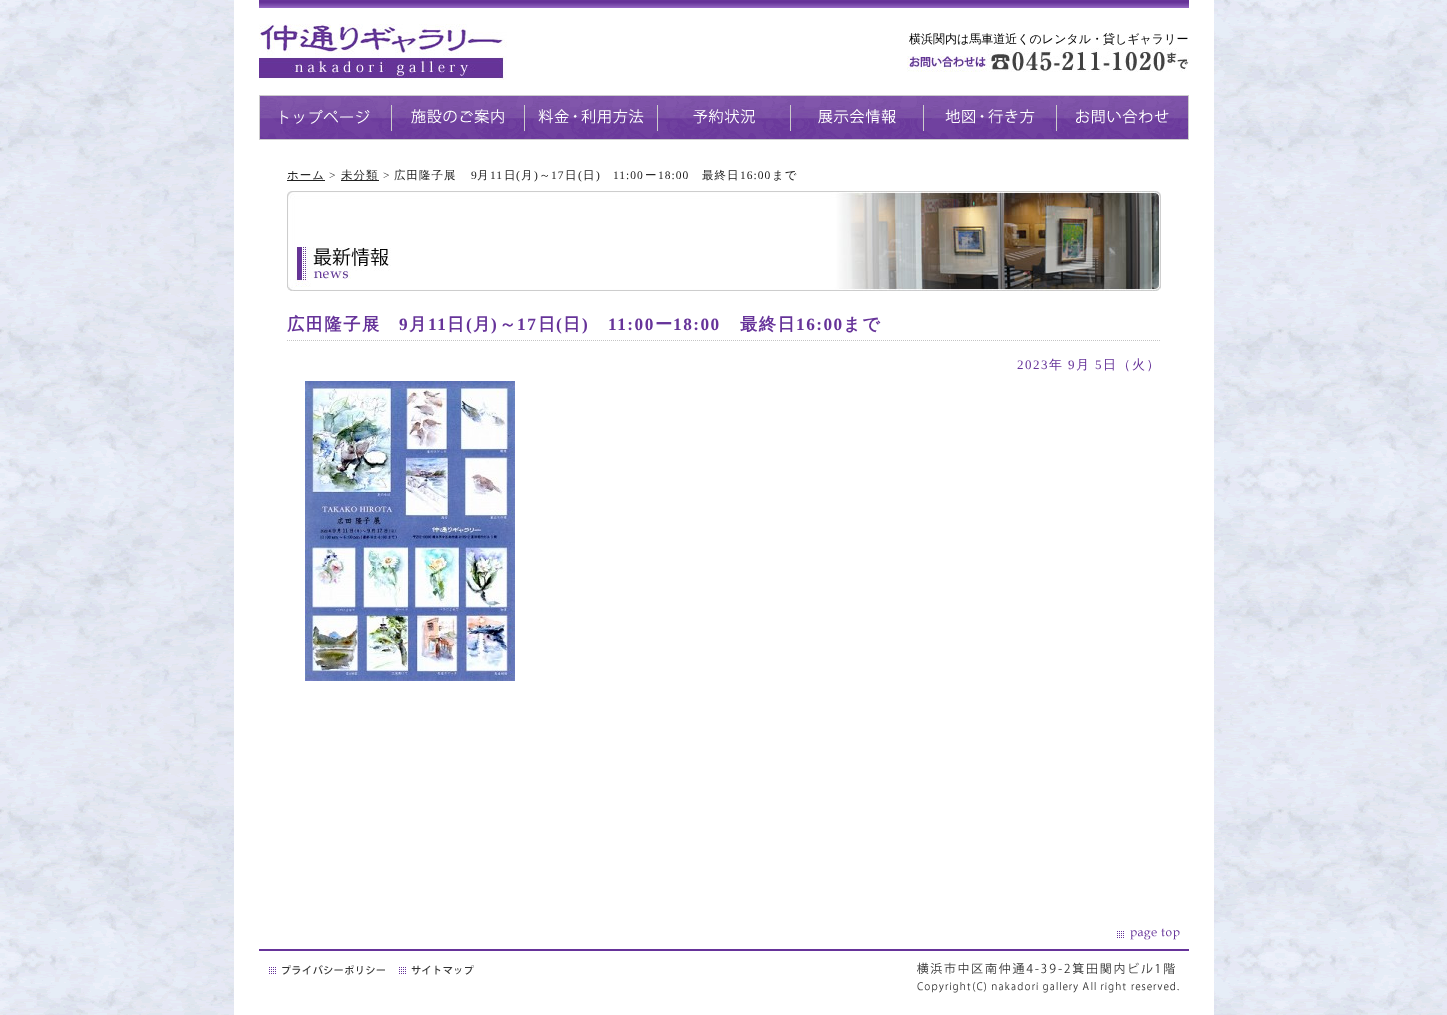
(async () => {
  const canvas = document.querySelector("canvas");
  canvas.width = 1447;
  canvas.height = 1015;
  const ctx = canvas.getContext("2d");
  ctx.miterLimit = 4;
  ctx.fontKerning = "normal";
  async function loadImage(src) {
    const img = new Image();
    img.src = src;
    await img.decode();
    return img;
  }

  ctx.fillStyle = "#ffffff";
  ctx.fillRect(0, 0, 1447, 1015);
  ctx.drawImage(await loadImage("img/1.png"), 0, 0, 1447, 1015);
  ctx.fillRect(234, 0, 980, 1015);
  ctx.drawImage(await loadImage("img/2.png"), 259, 0, 930, 80);
  ctx.drawImage(await loadImage("img/3.png"), 259, 95, 132, 45);
  ctx.drawImage(await loadImage("img/4.png"), 391, 95, 133, 45);
  ctx.drawImage(await loadImage("img/5.png"), 524, 95, 133, 45);
  ctx.drawImage(await loadImage("img/6.png"), 657, 95, 133, 45);
  ctx.drawImage(await loadImage("img/7.png"), 790, 95, 133, 45);
  ctx.drawImage(await loadImage("img/8.png"), 923, 95, 133, 45);
  ctx.drawImage(await loadImage("img/9.png"), 1056, 95, 133, 45);
  ctx.fillStyle = "#212121";
  ctx.fillRect(287, 180, 38, 1);
  ctx.fillRect(341, 180, 38, 1);
  ctx.drawImage(await loadImage("img/10.png"), 287, 191, 874, 100);
  ctx.drawImage(await loadImage("img/11.png"), 287, 340, 873, 1);
  ctx.drawImage(await loadImage("img/12.png"), 305, 381, 210, 300);
  ctx.fillStyle = "#663399";
  ctx.fillRect(259, 949, 930, 2);
  ctx.drawImage(await loadImage("img/13.png"), 1117, 928, 63, 12);
  ctx.drawImage(await loadImage("img/14.png"), 269, 965, 116, 10);
  ctx.drawImage(await loadImage("img/15.png"), 399, 965, 75, 10);
  ctx.drawImage(await loadImage("img/16.png"), 917, 962, 262, 31);
  ctx.font = "500 12px WenQuanYi Zen Hei";
  ctx.fillStyle = "#000000";
  ctx.fillText("横浜関内は馬車道近くのレンタル・貸しギャラリー", 909, 43);
  ctx.letterSpacing = "1px";
  ctx.font = "500 11.5px WenQuanYi Zen Hei";
  ctx.fillStyle = "#212121";
  ctx.fillText("ホーム", 287, 179);
  ctx.font = "11.5px Liberation Serif";
  ctx.fillText(">", 329, 179);
  ctx.font = "500 11.5px WenQuanYi Zen Hei";
  ctx.fillText("未分類", 341, 179);
  ctx.font = "11.5px Liberation Serif";
  ctx.fillText(">", 383, 179);
  ctx.font = "500 11.5px WenQuanYi Zen Hei";
  ctx.fillText("広田隆子展", 394, 179);
  ctx.font = "11.5px Liberation Serif";
  ctx.fillText("9", 471, 179);
  ctx.font = "500 11.5px WenQuanYi Zen Hei";
  ctx.fillText("月", 477, 179);
  ctx.font = "11.5px Liberation Serif";
  ctx.fillText("11", 490, 179);
  ctx.font = "500 11.5px WenQuanYi Zen Hei";
  ctx.fillText("日", 504, 179);
  ctx.font = "11.5px Liberation Serif";
  ctx.fillText("(", 516, 179);
  ctx.font = "500 11.5px WenQuanYi Zen Hei";
  ctx.fillText("月", 521, 179);
  ctx.font = "11.5px Liberation Serif";
  ctx.fillText(")", 534, 179);
  ctx.font = "500 11.5px WenQuanYi Zen Hei";
  ctx.fillText("～", 539, 179);
  ctx.font = "11.5px Liberation Serif";
  ctx.fillText("17", 551, 179);
  ctx.font = "500 11.5px WenQuanYi Zen Hei";
  ctx.fillText("日", 565, 179);
  ctx.font = "11.5px Liberation Serif";
  ctx.fillText("(", 578, 179);
  ctx.font = "500 11.5px WenQuanYi Zen Hei";
  ctx.fillText("日", 583, 179);
  ctx.font = "11.5px Liberation Serif";
  ctx.fillText(")", 596, 179);
  ctx.fillText("11:00", 613, 179);
  ctx.font = "500 11.5px WenQuanYi Zen Hei";
  ctx.fillText("ー", 645, 179);
  ctx.font = "11.5px Liberation Serif";
  ctx.fillText("18:00", 658, 179);
  ctx.font = "500 11.5px WenQuanYi Zen Hei";
  ctx.fillText("最終日", 702, 179);
  ctx.font = "11.5px Liberation Serif";
  ctx.fillText("16:00", 740, 179);
  ctx.font = "500 11.5px WenQuanYi Zen Hei";
  ctx.fillText("まで", 772, 179);
  ctx.letterSpacing = "1.5px";
  ctx.font = "bold 17.25px WenQuanYi Zen Hei";
  ctx.fillStyle = "#663399";
  ctx.fillText("広田隆子展", 287, 330);
  ctx.font = "bold 17.25px Liberation Serif";
  ctx.fillText("9", 399, 330);
  ctx.font = "bold 17.25px WenQuanYi Zen Hei";
  ctx.fillText("月", 409, 330);
  ctx.font = "bold 17.25px Liberation Serif";
  ctx.fillText("11", 428, 330);
  ctx.font = "bold 17.25px WenQuanYi Zen Hei";
  ctx.fillText("日", 447, 330);
  ctx.font = "bold 17.25px Liberation Serif";
  ctx.fillText("(", 466, 330);
  ctx.font = "bold 17.25px WenQuanYi Zen Hei";
  ctx.fillText("月", 473, 330);
  ctx.font = "bold 17.25px Liberation Serif";
  ctx.fillText(")", 491, 330);
  ctx.font = "bold 17.25px WenQuanYi Zen Hei";
  ctx.fillText("～", 499, 330);
  ctx.font = "bold 17.25px Liberation Serif";
  ctx.fillText("17", 517, 330);
  ctx.font = "bold 17.25px WenQuanYi Zen Hei";
  ctx.fillText("日", 538, 330);
  ctx.font = "bold 17.25px Liberation Serif";
  ctx.fillText("(", 556, 330);
  ctx.font = "bold 17.25px WenQuanYi Zen Hei";
  ctx.fillText("日", 563, 330);
  ctx.font = "bold 17.25px Liberation Serif";
  ctx.fillText(")", 582, 330);
  ctx.fillText("11:00", 608, 330);
  ctx.font = "bold 17.25px WenQuanYi Zen Hei";
  ctx.fillText("ー", 655, 330);
  ctx.font = "bold 17.25px Liberation Serif";
  ctx.fillText("18:00", 673, 330);
  ctx.font = "bold 17.25px WenQuanYi Zen Hei";
  ctx.fillText("最終日", 740, 330);
  ctx.font = "bold 17.25px Liberation Serif";
  ctx.fillText("16:00", 796, 330);
  ctx.font = "bold 17.25px WenQuanYi Zen Hei";
  ctx.fillText("まで", 843, 330);
  ctx.font = "13px Liberation Serif";
  ctx.fillText("2023", 1017, 369);
  ctx.font = "500 13px WenQuanYi Zen Hei";
  ctx.fillText("年", 1049, 369);
  ctx.font = "13px Liberation Serif";
  ctx.fillText("9", 1068, 369);
  ctx.font = "500 13px WenQuanYi Zen Hei";
  ctx.fillText("月", 1076, 369);
  ctx.font = "13px Liberation Serif";
  ctx.fillText("5", 1095, 369);
  ctx.font = "500 13px WenQuanYi Zen Hei";
  ctx.fillText("日（火）", 1103, 369);
})();
